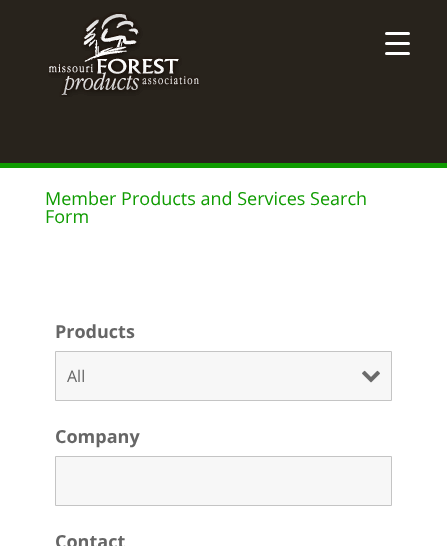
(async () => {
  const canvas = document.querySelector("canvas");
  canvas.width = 447;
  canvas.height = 546;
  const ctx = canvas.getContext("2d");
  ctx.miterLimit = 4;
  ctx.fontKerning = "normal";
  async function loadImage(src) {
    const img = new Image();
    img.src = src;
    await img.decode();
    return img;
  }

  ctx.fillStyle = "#ffffff";
  ctx.fillRect(0, 0, 447, 546);
  ctx.fillStyle = "#28231c";
  ctx.fillRect(0, 0, 447, 163);
  ctx.fillStyle = "#ffffff";
  ctx.beginPath();
  ctx.roundRect(385, 42, 25, 3, 1.5);
  ctx.fill();
  ctx.beginPath();
  ctx.roundRect(385, 32, 25, 3, 1.5);
  ctx.fill();
  ctx.beginPath();
  ctx.roundRect(385, 52, 25, 3, 1.5);
  ctx.fill();
  ctx.fillStyle = "#0f9b01";
  ctx.fillRect(0, 163, 447, 5);
  ctx.drawImage(await loadImage("img/1.png"), 48, 12, 152, 85);
  ctx.fillStyle = "#f7f7f7";
  ctx.beginPath();
  ctx.rect(55.5, 351.5, 336, 49);
  ctx.fill();
  ctx.strokeStyle = "#c4c4c4";
  ctx.stroke();
  ctx.drawImage(await loadImage("img/2.png"), 362, 370, 18, 13);
  ctx.beginPath();
  ctx.rect(55.5, 456.5, 336, 49);
  ctx.fill();
  ctx.stroke();
  ctx.font = "18px Open Sans";
  ctx.fillStyle = "#0f9c01";
  ctx.fillText("Member Products and Services Search", 45, 205);
  ctx.fillText("Form", 45, 223);
  ctx.font = "bold 18px Open Sans";
  ctx.fillStyle = "#666666";
  ctx.fillText("Products", 55, 338);
  ctx.font = "16px Open Sans";
  ctx.fillText("All", 67, 382);
  ctx.font = "bold 18px Open Sans";
  ctx.fillText("Company", 55, 443);
  ctx.fillText("Contact", 55, 548);
})();
